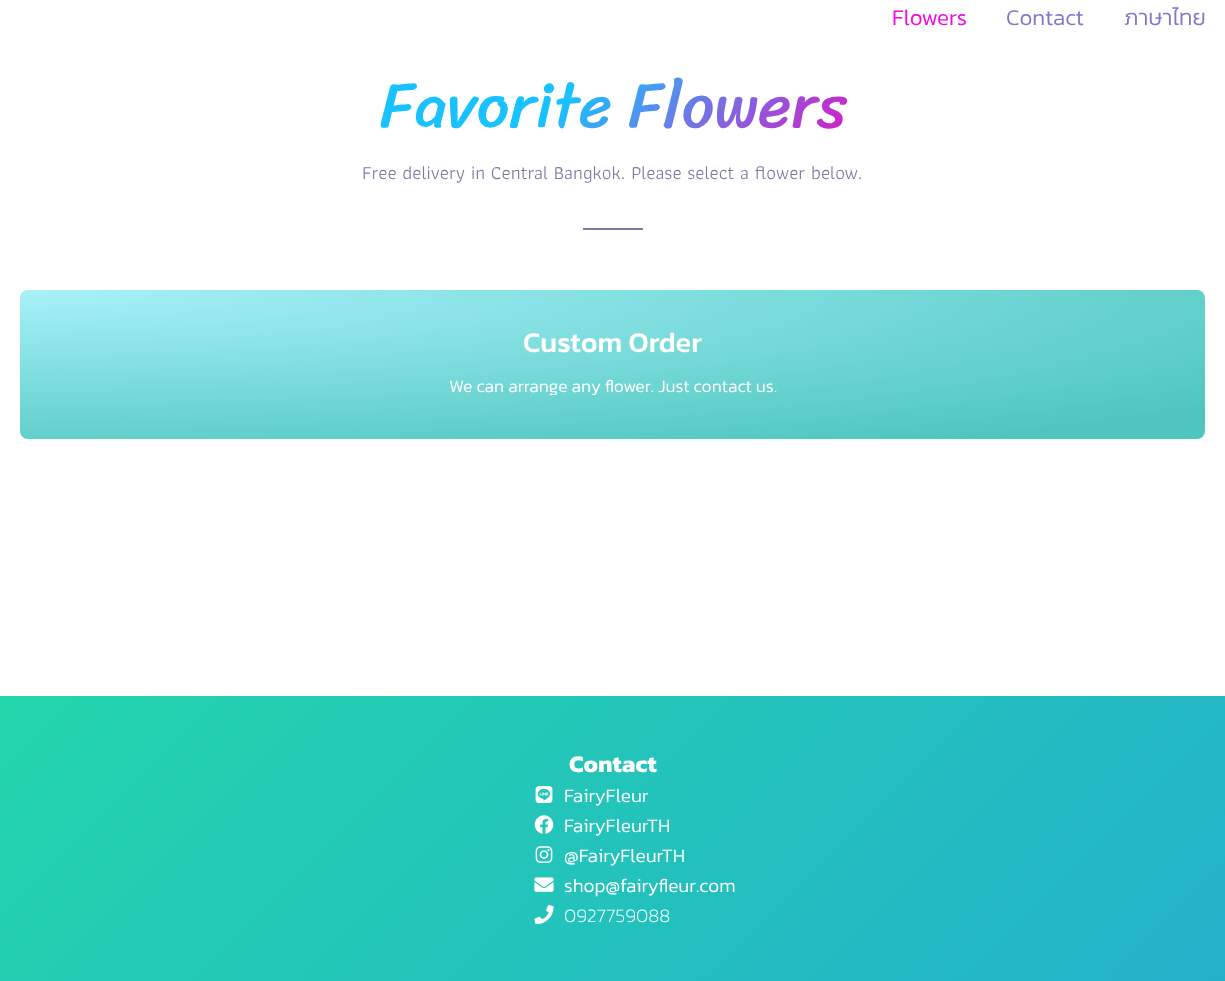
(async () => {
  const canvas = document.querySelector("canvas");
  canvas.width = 1225;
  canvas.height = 981;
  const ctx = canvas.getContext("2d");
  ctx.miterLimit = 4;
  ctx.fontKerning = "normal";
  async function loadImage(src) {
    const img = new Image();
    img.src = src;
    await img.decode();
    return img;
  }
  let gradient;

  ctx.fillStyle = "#ffffff";
  ctx.fillRect(0, 0, 1225, 981);
  ctx.fillStyle = "#787ba0";
  ctx.fillRect(583, 228, 60, 2);
  gradient = ctx.createRadialGradient(20, 2303.51, 0, 20, 2303.51, 1676);
  gradient.addColorStop(0, "#a8f1f9");
  gradient.addColorStop(0.9, "#4ec6be");
  ctx.fillStyle = gradient;
  ctx.beginPath();
  ctx.roundRect(20, 290, 1185, 149, 8);
  ctx.save();
  ctx.clip();
  ctx.scale(1, 211 / 1676);
  ctx.fillRect(0, 0, 1225, 7793);
  ctx.restore();
  gradient = ctx.createLinearGradient(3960, 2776, 940, -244);
  gradient.addColorStop(0, "#ee7752");
  gradient.addColorStop(0.33, "#e73c7e");
  gradient.addColorStop(0.67, "#23a6d5");
  gradient.addColorStop(1, "#23d5ab");
  ctx.fillStyle = gradient;
  ctx.fillRect(0, 696, 1225, 285);
  ctx.drawImage(await loadImage("img/1.png"), 535, 786, 18, 17);
  ctx.drawImage(await loadImage("img/2.png"), 534, 815, 20, 19);
  ctx.drawImage(await loadImage("img/3.png"), 535, 846, 18, 17);
  ctx.drawImage(await loadImage("img/4.png"), 534, 877, 20, 15);
  ctx.drawImage(await loadImage("img/5.png"), 534, 905, 20, 20);
  ctx.font = "300 22.5px Kanit";
  ctx.fillStyle = "#f209de";
  ctx.fillText("Flowers", 892, 25);
  ctx.fillStyle = "#8178cb";
  ctx.fillText("Contact", 1006, 25);
  ctx.fillText("ภาษาไทย", 1124, 25);
  ctx.font = "64px Sriracha";
  gradient = ctx.createLinearGradient(480, -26, 745, 238);
  gradient.addColorStop(0.4, "#19c2ff");
  gradient.addColorStop(1, "#d71bc7");
  ctx.fillStyle = gradient;
  ctx.fillText("Favorite Flowers", 380, 127);
  ctx.font = "19.2px Athiti";
  ctx.fillStyle = "#787ba0";
  ctx.fillText("Free delivery in Central Bangkok. Please select a flower below.", 362, 179);
  ctx.font = "500 28.75px Kanit";
  ctx.fillStyle = "#ffffff";
  ctx.fillText("Custom Order", 523, 352);
  ctx.font = "300 17.6px Kanit";
  ctx.fillText("We can arrange any flower. Just contact us.", 449, 392);
  ctx.font = "bold 24px Kanit";
  ctx.fillText("Contact", 569, 772);
  ctx.font = "300 19.2px Kanit";
  for (const [text, x, y] of [
    ["FairyFleur", 564, 802],
    ["FairyFleurTH", 564, 832],
    ["@FairyFleurTH", 564, 862],
    ["shop@fairyfleur.com", 564, 892],
  ]) {
    ctx.fillText(text, x, y);
  }
  ctx.font = "200 19.2px Kanit";
  ctx.fillText("0927759088", 564, 922);
})();
